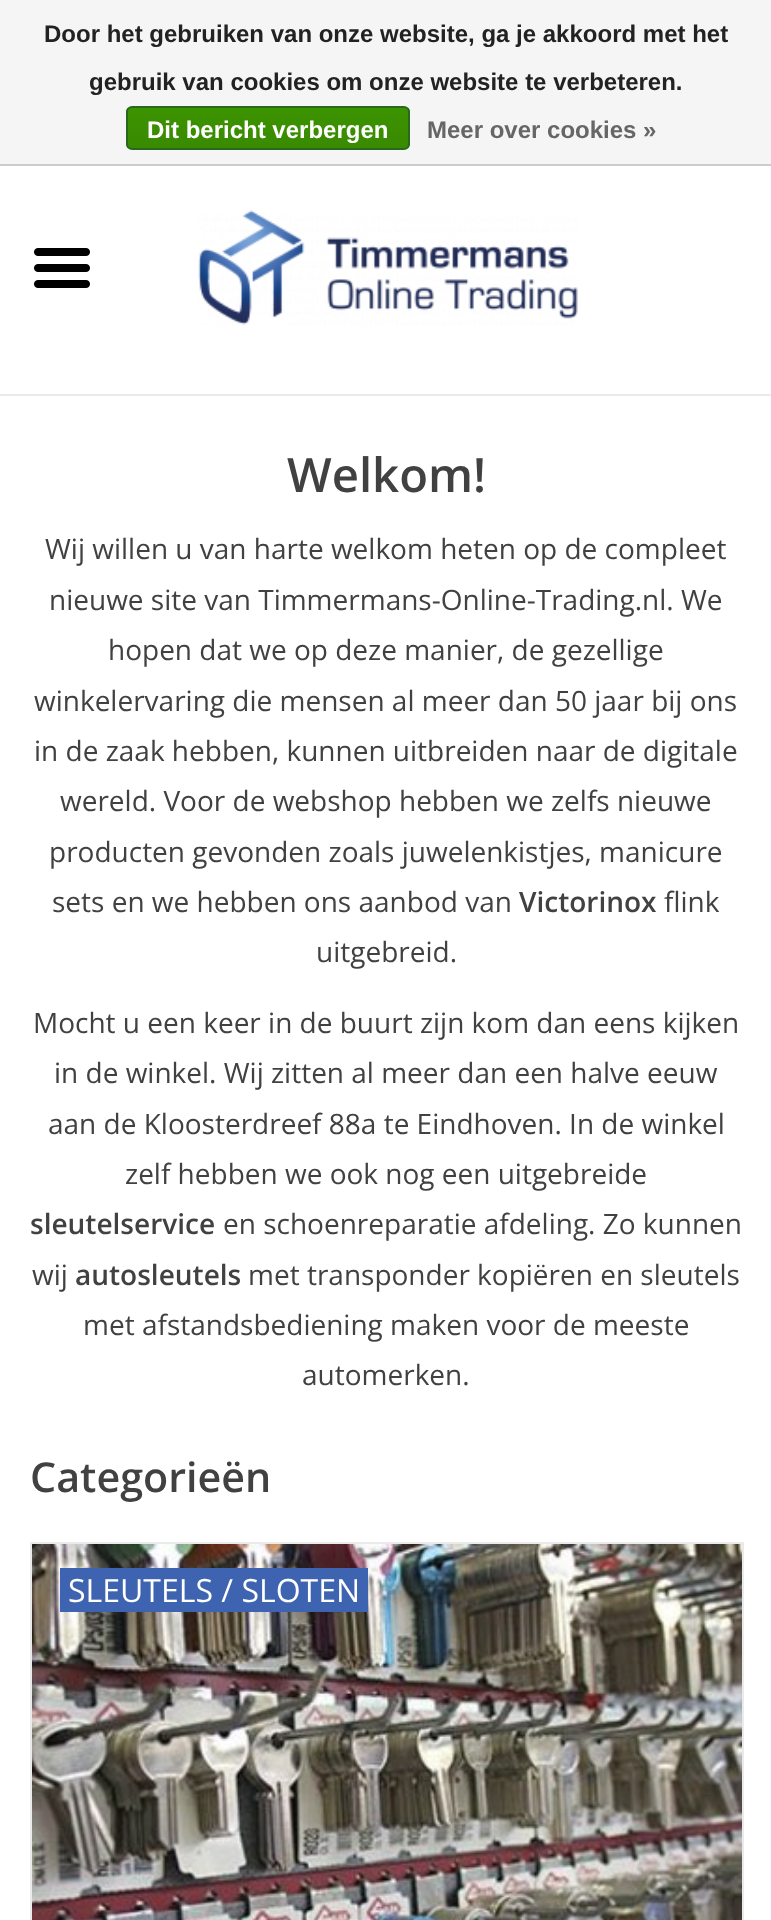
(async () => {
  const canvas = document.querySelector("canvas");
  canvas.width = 771;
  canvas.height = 1920;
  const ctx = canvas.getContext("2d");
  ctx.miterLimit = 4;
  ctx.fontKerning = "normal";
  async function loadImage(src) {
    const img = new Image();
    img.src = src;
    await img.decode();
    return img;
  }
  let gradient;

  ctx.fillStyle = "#ffffff";
  ctx.fillRect(0, 0, 771, 1920);
  ctx.fillStyle = "#f5f5f5";
  ctx.fillRect(0, 0, 771, 164);
  ctx.fillStyle = "#cccccc";
  ctx.fillRect(0, 164, 771, 2);
  ctx.save();
  ctx.beginPath();
  ctx.roundRect(126, 106, 284, 44, 6);
  ctx.clip();
  gradient = ctx.createLinearGradient(268, 108, 268, 148);
  gradient.addColorStop(0, "#3c9300");
  gradient.addColorStop(1, "#398a00");
  ctx.fillStyle = gradient;
  ctx.fillRect(126, 108, 284, 40);
  ctx.restore();
  ctx.beginPath();
  ctx.roundRect(127, 107, 282, 42, 5);
  ctx.strokeStyle = "#29691d";
  ctx.lineWidth = 2;
  ctx.stroke();
  ctx.fillStyle = "#eaeaea";
  ctx.fillRect(0, 394, 771, 2);
  ctx.drawImage(await loadImage("img/1.png"), 198, 210, 380, 115);
  ctx.drawImage(await loadImage("img/2.png"), 34, 248, 56, 40);
  ctx.strokeStyle = "#eaeaea";
  ctx.strokeRect(31, 1543, 712, 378);
  ctx.drawImage(await loadImage("img/3.png"), 32, 1544, 710, 376);
  ctx.fillStyle = "#3e64b1";
  ctx.fillRect(360, 1568, 8, 44);
  ctx.fillRect(60, 1568, 300, 44);
  ctx.font = "bold 24px Liberation Sans";
  ctx.fillStyle = "#222222";
  ctx.fillText("Door het gebruiken van onze website, ga je akkoord met het", 44, 42);
  ctx.fillText("gebruik van cookies om onze website te verbeteren.", 89, 90);
  ctx.fillStyle = "#ffffff";
  ctx.fillText("Dit bericht verbergen", 147, 138);
  ctx.fillStyle = "#666666";
  ctx.fillText("Meer over cookies »", 427, 138);
  ctx.font = "600 47.25px Open Sans";
  ctx.fillStyle = "#414141";
  ctx.fillText("Welkom!", 287, 492);
  ctx.font = "28px Open Sans";
  for (const [text, x, y] of [
    ["Wij willen u van harte welkom heten op de compleet", 45, 559],
    ["nieuwe site van Timmermans-Online-Trading.nl. We", 49, 610],
    ["hopen dat we op deze manier, de gezellige", 108, 660],
    ["winkelervaring die mensen al meer dan 50 jaar bij ons", 34, 711],
    ["in de zaak hebben, kunnen uitbreiden naar de digitale", 34, 761],
    ["wereld. Voor de webshop hebben we zelfs nieuwe", 60, 811],
    ["producten gevonden zoals juwelenkistjes, manicure", 49, 862],
    ["sets en we hebben ons aanbod van", 52, 912],
  ]) {
    ctx.fillText(text, x, y);
  }
  ctx.font = "600 28px Open Sans";
  ctx.fillText("Victorinox", 519, 912);
  ctx.font = "28px Open Sans";
  for (const [text, x, y] of [
    ["flink", 664, 912],
    ["uitgebreid.", 316, 962],
    ["Mocht u een keer in de buurt zijn kom dan eens kijken", 33, 1033],
    ["in de winkel. Wij zitten al meer dan een halve eeuw", 54, 1083],
    ["aan de Kloosterdreef 88a te Eindhoven. In de winkel", 48, 1134],
    ["zelf hebben we ook nog een uitgebreide", 125, 1184],
  ]) {
    ctx.fillText(text, x, y);
  }
  ctx.font = "600 28px Open Sans";
  ctx.fillText("sleutelservice", 30, 1234);
  ctx.font = "28px Open Sans";
  ctx.fillText("en schoenreparatie afdeling. Zo kunnen", 223, 1234);
  ctx.fillText("wij", 32, 1285);
  ctx.font = "600 28px Open Sans";
  ctx.fillText("autosleutels", 75, 1285);
  ctx.font = "28px Open Sans";
  for (const [text, x, y] of [
    ["met transponder kopiëren en sleutels", 248, 1285],
    ["met afstandsbediening maken voor de meeste", 83, 1335],
    ["automerken.", 302, 1385],
  ]) {
    ctx.fillText(text, x, y);
  }
  ctx.font = "600 41.25px Open Sans";
  ctx.fillText("Categorieën", 30, 1492);
  ctx.font = "32px Open Sans";
  ctx.fillStyle = "#ffffff";
  ctx.fillText("SLEUTELS / SLOTEN", 68, 1602);
})();
